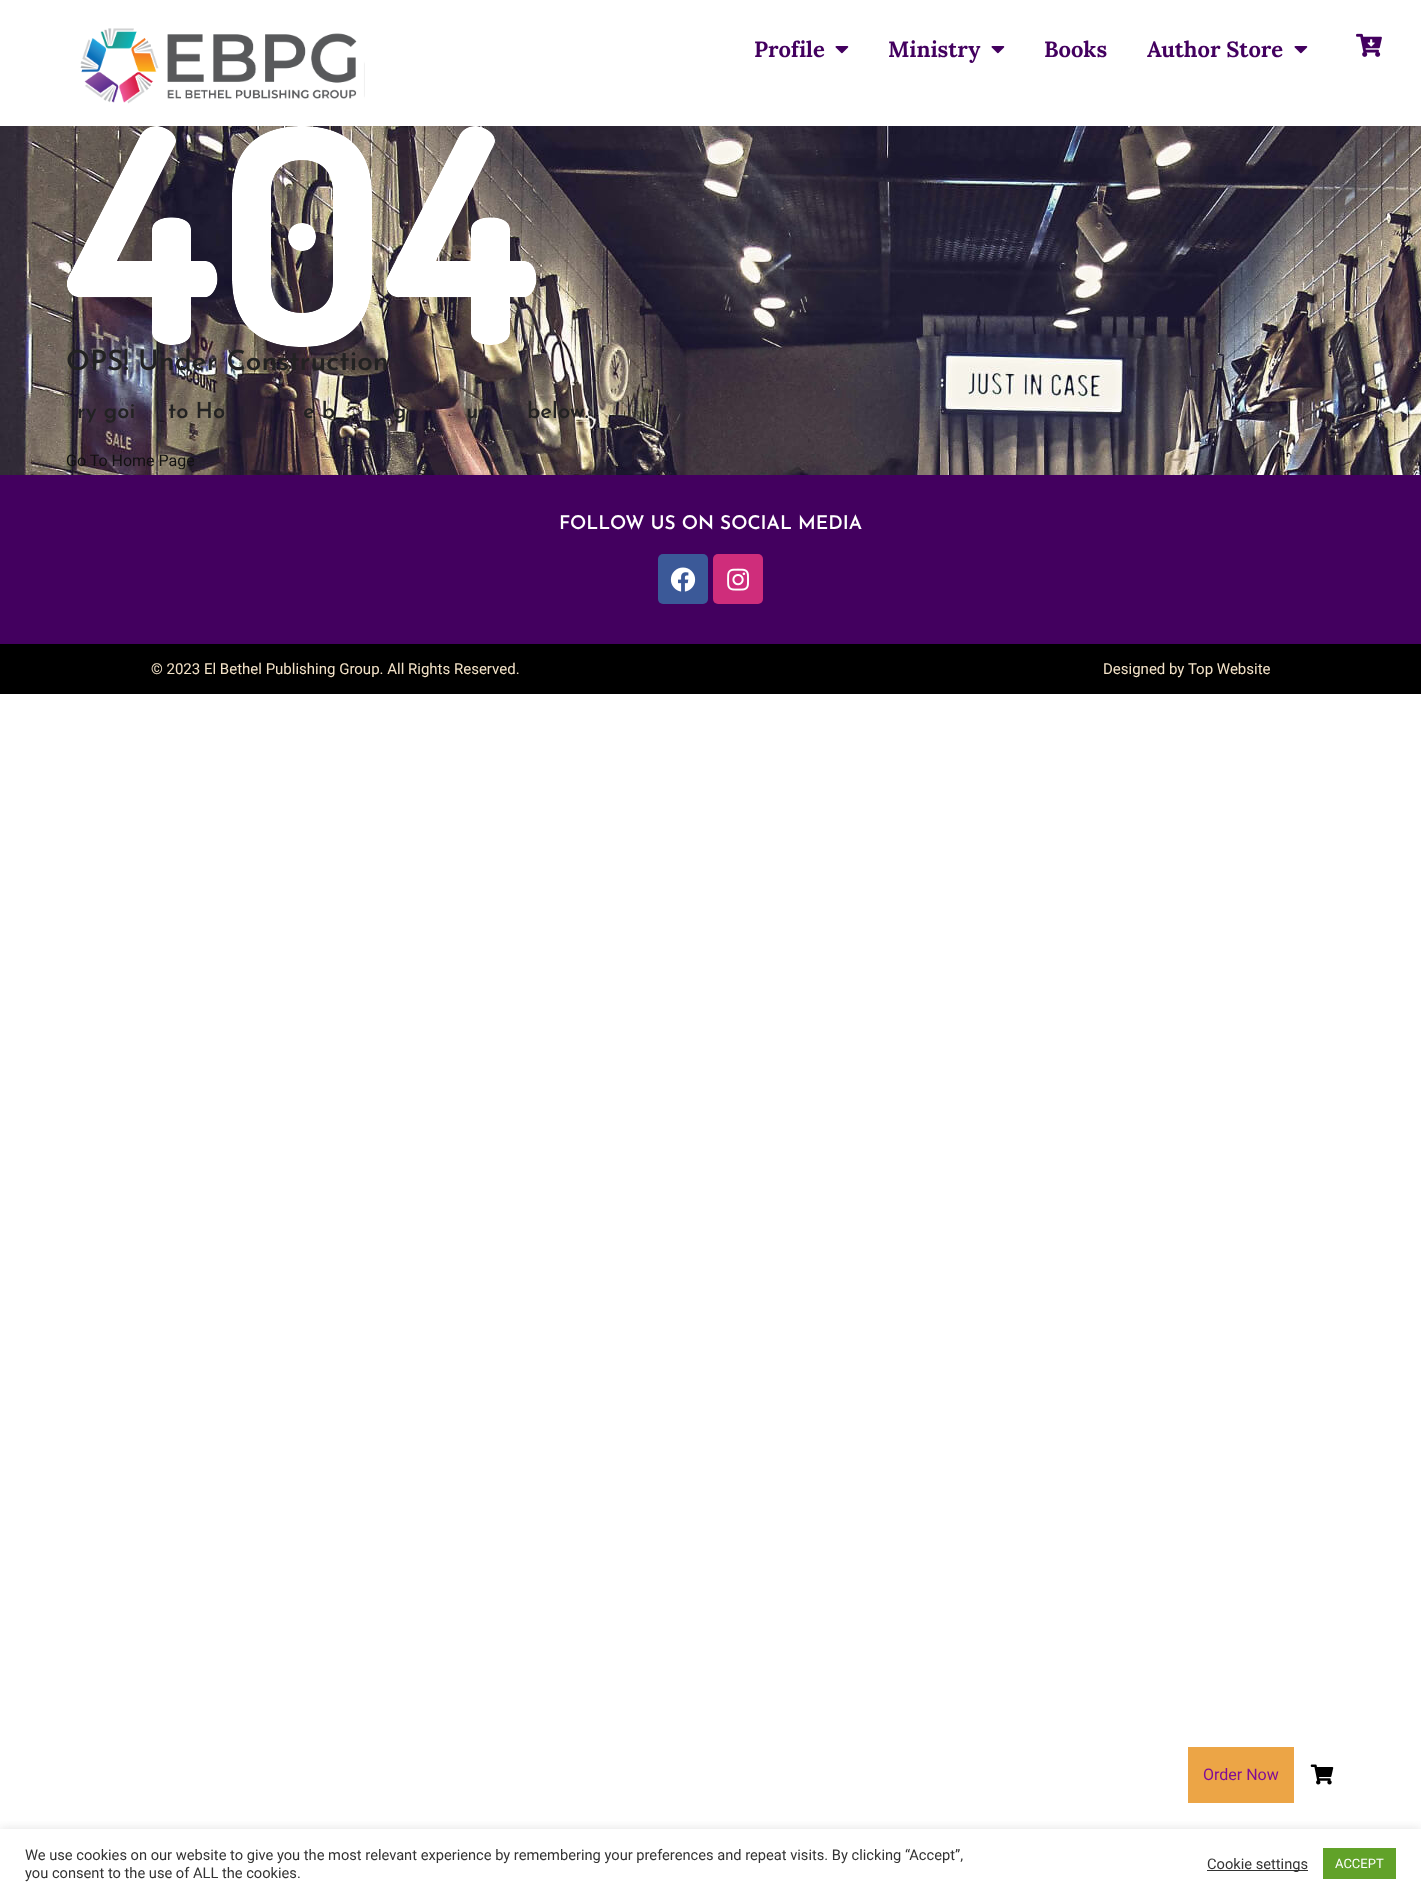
(async () => {
  const canvas = document.querySelector("canvas");
  canvas.width = 1421;
  canvas.height = 1898;
  const ctx = canvas.getContext("2d");
  ctx.miterLimit = 4;
  ctx.fontKerning = "normal";
  async function loadImage(src) {
    const img = new Image();
    img.src = src;
    await img.decode();
    return img;
  }

  ctx.fillStyle = "#ffffff";
  ctx.fillRect(0, 0, 1421, 1898);
  ctx.drawImage(await loadImage("img/1.png"), 80, 28, 285, 76);
  ctx.drawImage(await loadImage("img/2.png"), 835, 46, 14, 8);
  ctx.drawImage(await loadImage("img/2.png"), 991, 46, 14, 8);
  ctx.drawImage(await loadImage("img/2.png"), 1294, 46, 14, 8);
  ctx.drawImage(await loadImage("img/3.png"), 1356, 33, 26, 24);
  ctx.drawImage(await loadImage("img/4.png"), 0, 126, 1421, 349);
  ctx.drawImage(await loadImage("img/5.png"), 66, 126, 471, 221);
  ctx.fillStyle = "#43005f";
  ctx.fillRect(0, 475, 1421, 169);
  ctx.fillStyle = "#3b5998";
  ctx.beginPath();
  ctx.roundRect(658, 554, 50, 50, 5);
  ctx.fill();
  ctx.drawImage(await loadImage("img/6.png"), 670, 567, 26, 25);
  ctx.fillStyle = "#cf2d7b";
  ctx.beginPath();
  ctx.roundRect(713, 554, 50, 50, 5);
  ctx.fill();
  ctx.drawImage(await loadImage("img/7.png"), 727, 568, 22, 23);
  ctx.fillStyle = "#000000";
  ctx.fillRect(0, 644, 1421, 50);
  ctx.fillStyle = "#eca546";
  ctx.fillRect(1188, 1747, 106, 56);
  ctx.drawImage(await loadImage("img/8.png"), 1310, 1764, 24, 21);
  ctx.save();
  ctx.beginPath();
  ctx.rect(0, 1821, 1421, 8);
  ctx.clip();
  ctx.fillStyle = "rgba(172, 171, 171, 0.3)";
  ctx.filter = "blur(5px)";
  ctx.beginPath();
  ctx.rect(0, 1828, 1421, 69);
  ctx.fill();
  ctx.filter = "none";
  ctx.restore();
  ctx.fillStyle = "#333333";
  ctx.fillRect(1207, 1870, 101, 1);
  ctx.fillStyle = "#61a229";
  ctx.fillRect(1323, 1848, 73, 31);
  ctx.font = "bold 22px Lora";
  ctx.fillStyle = "#43005f";
  for (const [text, x, y] of [
    ["Profile", 754, 57],
    ["Ministry", 888, 57],
    ["Books", 1044, 57],
    ["Author Store", 1147, 57],
  ]) {
    ctx.fillText(text, x, y);
  }
  ctx.font = "600 28px Josefin Sans";
  ctx.fillStyle = "#222222";
  ctx.fillText("OPS! Under Construction", 66, 370);
  ctx.font = "600 22px Josefin Sans";
  for (const [text, x, y] of [
    ["ry goi", 77, 418],
    ["to Ho", 168, 418],
    ["e b", 303, 418],
    ["g", 393, 418],
    ["u", 466, 418],
    ["below.", 527, 418],
  ]) {
    ctx.fillText(text, x, y);
  }
  ctx.font = "16px Roboto";
  ctx.fillStyle = "#111111";
  ctx.fillText("Go To Home Page", 66, 466);
  ctx.font = "600 19px Josefin Sans";
  ctx.fillStyle = "#ffffff";
  ctx.fillText("FOLLOW US ON SOCIAL MEDIA", 559, 529);
  ctx.font = "15px Roboto";
  ctx.fillStyle = "#f3e2c7";
  ctx.fillText("© 2023 El Bethel Publishing Group. All Rights Reserved.", 151, 674);
  ctx.fillText("Designed by Top Website", 1103, 674);
  ctx.font = "16px Roboto";
  ctx.fillStyle = "#810c97";
  ctx.fillText("Order Now", 1203, 1780);
  ctx.font = "14.67px Roboto";
  ctx.fillStyle = "#333333";
  for (const [text, x, y] of [
    ["We use cookies on our website to give you the most relevant experience by remembering your preferences and repeat visits. By clicking “Accept”,", 25, 1860],
    ["you consent to the use of ALL the cookies.", 25, 1878],
    ["Cookie settings", 1207, 1869],
  ]) {
    ctx.fillText(text, x, y);
  }
  ctx.font = "13px Roboto";
  ctx.fillStyle = "#ffffff";
  ctx.fillText("ACCEPT", 1335, 1868);
})();
